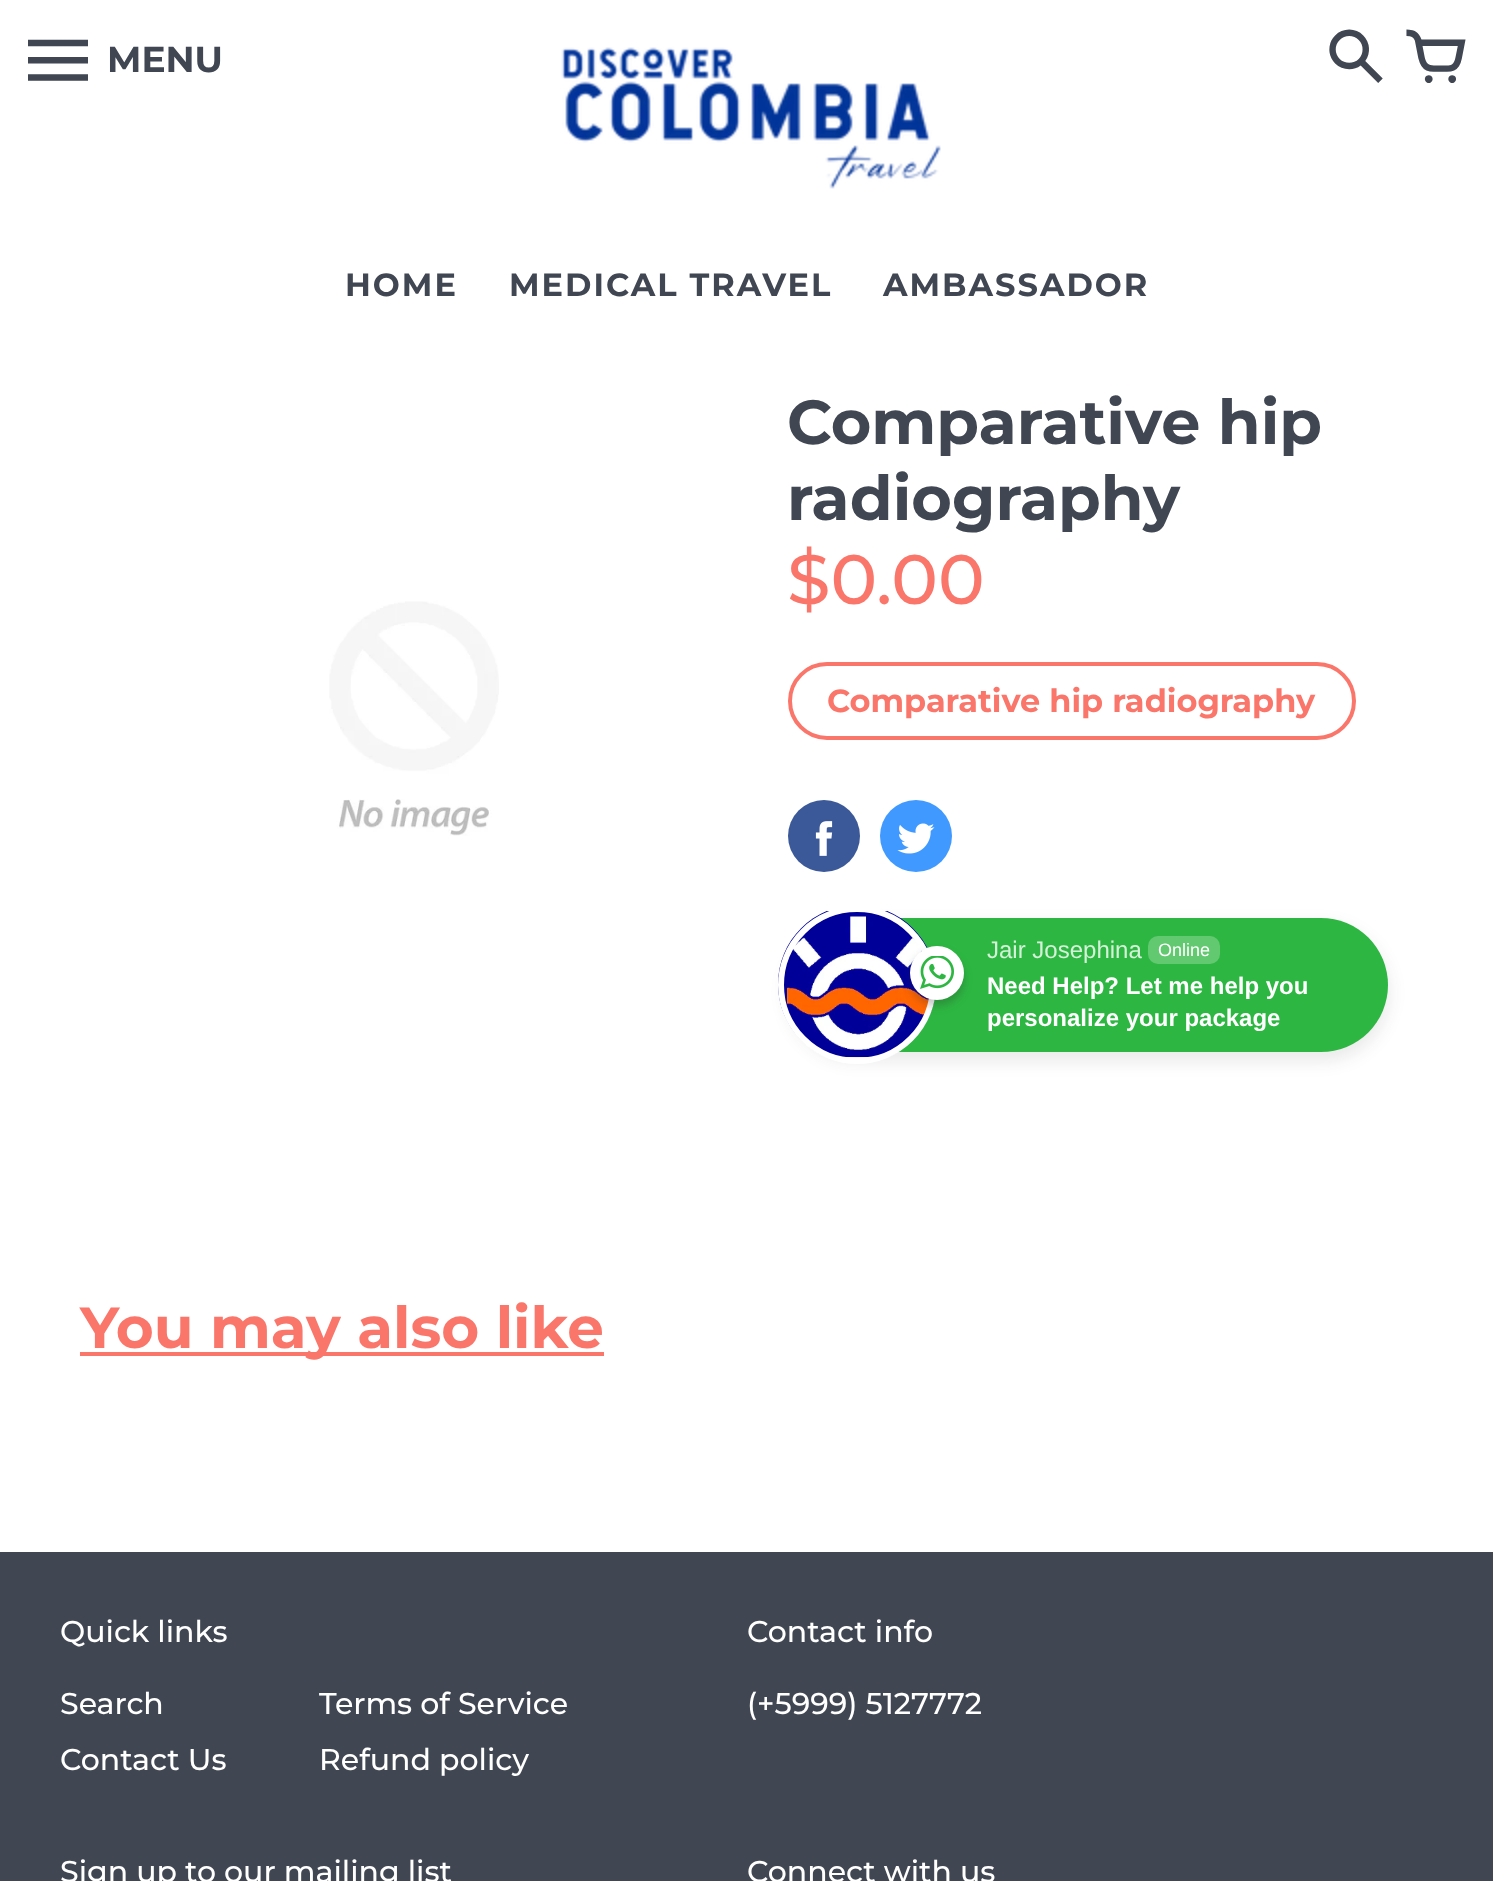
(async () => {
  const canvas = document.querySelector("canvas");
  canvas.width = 1493;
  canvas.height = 1881;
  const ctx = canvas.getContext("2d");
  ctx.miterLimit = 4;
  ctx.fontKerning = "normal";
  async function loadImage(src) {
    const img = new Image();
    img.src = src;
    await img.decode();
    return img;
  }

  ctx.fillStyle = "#ffffff";
  ctx.fillRect(0, 0, 1493, 1881);
  ctx.drawImage(await loadImage("img/1.png"), 561, 47, 380, 142);
  ctx.drawImage(await loadImage("img/2.png"), 329, 601, 170, 235);
  ctx.beginPath();
  ctx.roundRect(790, 664, 564, 74, 37);
  ctx.strokeStyle = "#fa766a";
  ctx.lineWidth = 4;
  ctx.stroke();
  ctx.fillStyle = "#3b5998";
  ctx.beginPath();
  ctx.arc(824, 836, 36, 0, Math.PI * 2);
  ctx.fill();
  ctx.drawImage(await loadImage("img/3.png"), 815, 821, 18, 35);
  ctx.fillStyle = "#4099ff";
  ctx.beginPath();
  ctx.arc(916, 836, 36, 0, Math.PI * 2);
  ctx.fill();
  ctx.drawImage(await loadImage("img/4.png"), 897, 823, 38, 31);
  ctx.fillStyle = "rgba(32, 32, 37, 0.09)";
  ctx.filter = "blur(8px)";
  ctx.beginPath();
  ctx.roundRect(786, 924, 604, 138, 69);
  ctx.fill();
  ctx.filter = "none";
  ctx.fillStyle = "#2db742";
  ctx.beginPath();
  ctx.roundRect(788, 918, 600, 134, 67);
  ctx.fill();
  ctx.drawImage(await loadImage("img/5.png"), 778, 911, 157, 146);
  ctx.beginPath();
  ctx.arc(857, 985, 76, 0, Math.PI * 2);
  ctx.strokeStyle = "#ffffff";
  ctx.lineWidth = 6;
  ctx.stroke();
  ctx.fillStyle = "rgba(39, 38, 38, 0.26)";
  ctx.filter = "blur(4px)";
  ctx.beginPath();
  ctx.roundRect(910, 952, 54, 54, 27);
  ctx.fill();
  ctx.filter = "none";
  ctx.fillStyle = "#ffffff";
  ctx.beginPath();
  ctx.arc(937, 973, 27, 0, Math.PI * 2);
  ctx.fill();
  ctx.drawImage(await loadImage("img/6.png"), 920, 956, 34, 33);
  ctx.fillStyle = "#62c971";
  ctx.beginPath();
  ctx.roundRect(1148, 936, 72, 28, 10);
  ctx.fill();
  ctx.fillStyle = "#fa766a";
  ctx.fillRect(80, 1352, 524, 4);
  ctx.fillStyle = "#404752";
  ctx.fillRect(0, 1552, 1493, 329);
  ctx.font = "60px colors";
  ctx.fillText("1", 28, 94);
  ctx.font = "bold 36px Montserrat";
  ctx.fillText("MENU", 107, 72);
  ctx.font = "60px colors";
  ctx.fillText("2", 1326, 90);
  ctx.fillText("3", 1406, 90);
  ctx.letterSpacing = "2px";
  ctx.font = "bold 32px Montserrat";
  for (const [text, x, y] of [
    ["HOME", 345, 296],
    ["MEDICAL TRAVEL", 509, 296],
    ["AMBASSADOR", 883, 296],
  ]) {
    ctx.fillText(text, x, y);
  }
  ctx.letterSpacing = "0px";
  ctx.font = "bold 62px Montserrat";
  ctx.fillText("Comparative hip", 787, 444);
  ctx.fillText("radiography", 787, 520);
  ctx.font = "500 70px Montserrat";
  ctx.fillStyle = "#fa766a";
  ctx.fillText("$0.00", 787, 604);
  ctx.font = "bold 32px Montserrat";
  ctx.fillText("Comparative hip radiography", 827, 712);
  ctx.font = "24px Liberation Sans";
  ctx.fillStyle = "#d5f0d9";
  ctx.fillText("Jair Josephina", 987, 958);
  ctx.font = "18px Liberation Sans";
  ctx.fillStyle = "#ffffff";
  ctx.fillText("Online", 1158, 956);
  ctx.font = "bold 24px Liberation Sans";
  ctx.fillText("Need Help? Let me help you", 987, 994);
  ctx.fillText("personalize your package", 987, 1026);
  ctx.font = "bold 58px Montserrat";
  ctx.fillStyle = "#fa766a";
  ctx.fillText("You may also like", 80, 1348);
  ctx.font = "500 30px Montserrat";
  ctx.fillStyle = "#ffffff";
  for (const [text, x, y] of [
    ["Quick links", 60, 1642],
    ["Search", 60, 1714],
    ["Contact Us", 60, 1770],
    ["Terms of Service", 319, 1714],
    ["Refund policy", 319, 1770],
    ["Contact info", 747, 1642],
    ["(+5999) 5127772", 747, 1714],
    ["Sign up to our mailing list", 60, 1882],
    ["Connect with us", 747, 1882],
  ]) {
    ctx.fillText(text, x, y);
  }
})();
